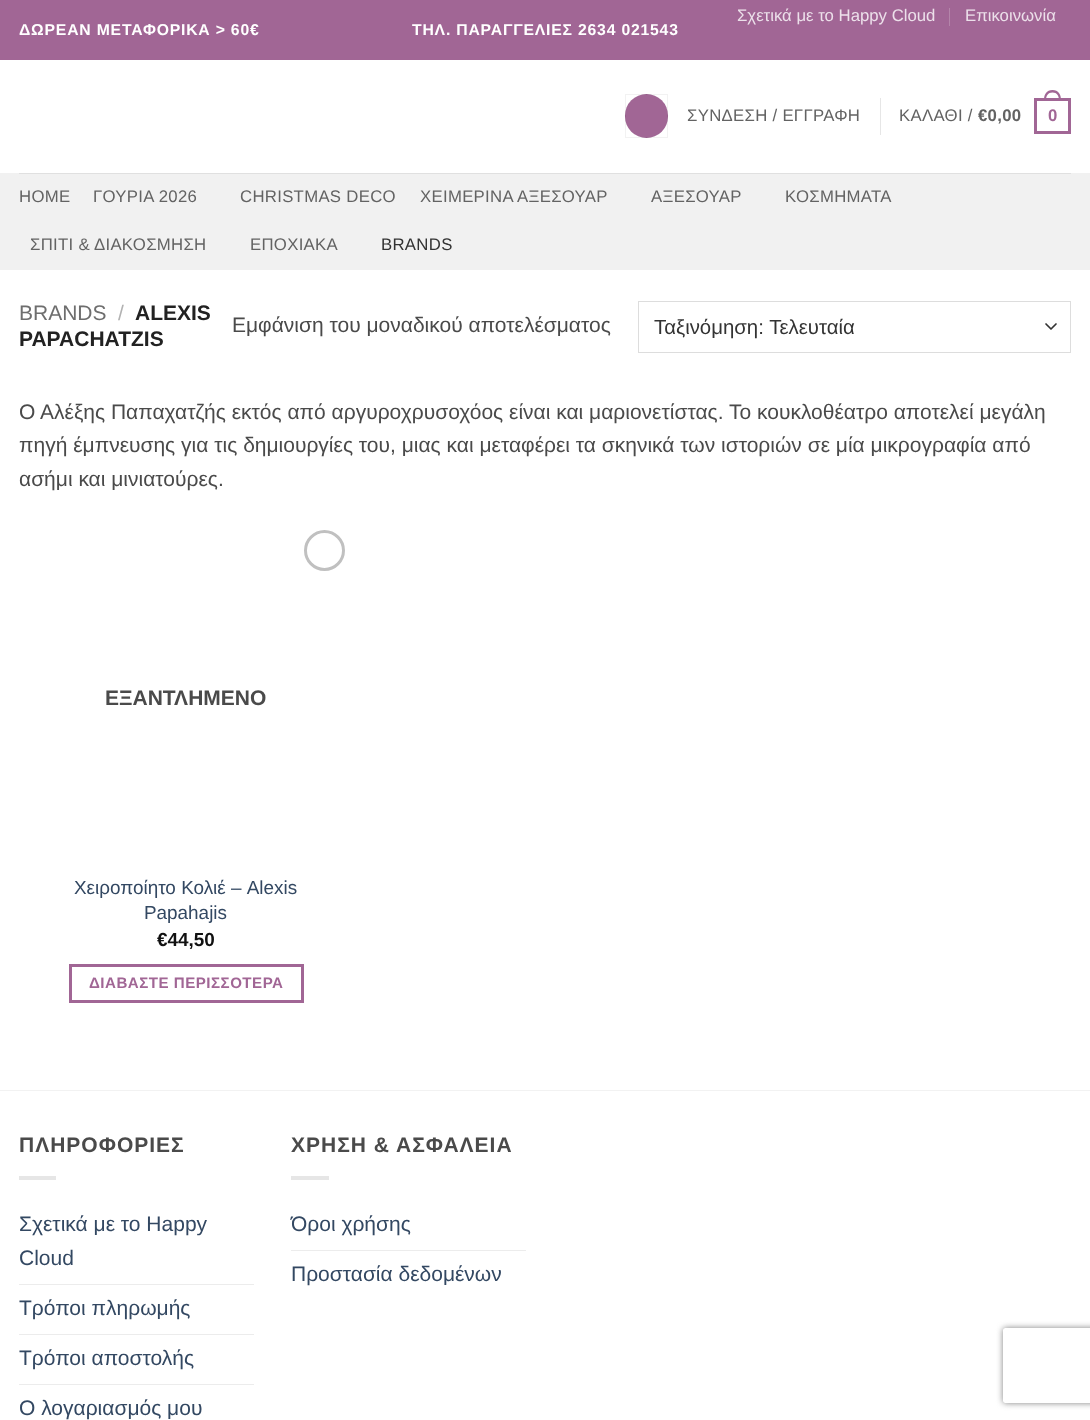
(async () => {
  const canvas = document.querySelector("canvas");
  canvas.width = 1090;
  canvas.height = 1420;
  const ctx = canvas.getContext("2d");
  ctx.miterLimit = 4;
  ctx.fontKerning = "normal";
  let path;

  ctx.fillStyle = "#ffffff";
  ctx.fillRect(0, 0, 1090, 1420);
  ctx.fillStyle = "#a16695";
  ctx.fillRect(0, 0, 1090, 60);
  ctx.fillStyle = "#b485aa";
  ctx.fillRect(949, 8, 1, 18);
  ctx.fillStyle = "#a16695";
  ctx.beginPath();
  ctx.roundRect(625, 94, 43, 44, 21.5);
  ctx.fill();
  ctx.strokeStyle = "rgba(0, 0, 0, 0.05)";
  ctx.strokeRect(625.5, 94.5, 42, 43);
  ctx.fillStyle = "#e6e6e6";
  ctx.fillRect(880, 98, 1, 37);
  ctx.strokeStyle = "#a16695";
  ctx.lineWidth = 3;
  ctx.strokeRect(1035.5, 99.5, 34, 33);
  ctx.fillStyle = "#a16695";
  path = new Path2D("M1052.5 90C1058.5 90 1061 94.5 1061 100H1044C1044 94.5 1046.5 90 1052.5 90ZM1052.5 92.5C1057 92.5 1059 96 1059 100H1046C1046 96 1048 92.5 1052.5 92.5Z");
  ctx.fill(path, "evenodd");
  ctx.fillStyle = "#f1f1f1";
  ctx.fillRect(0, 173, 1090, 97);
  ctx.fillStyle = "#e0e0e0";
  ctx.fillRect(19, 173, 1052, 1);
  path = new Path2D("M1046 324L1051 329L1056 324");
  ctx.strokeStyle = "#333333";
  ctx.lineWidth = 1.7;
  ctx.lineCap = "round";
  ctx.lineJoin = "round";
  ctx.stroke(path);
  ctx.strokeStyle = "#dddddd";
  ctx.lineWidth = 1;
  ctx.lineJoin = "miter";
  ctx.strokeRect(638.5, 301.5, 432, 51);
  ctx.beginPath();
  ctx.arc(324.5, 550.5, 19, 0, Math.PI * 2);
  ctx.strokeStyle = "#c0c0c0";
  ctx.lineWidth = 3;
  ctx.stroke();
  ctx.strokeStyle = "#a16695";
  ctx.strokeRect(70.5, 965.5, 232, 36);
  for (const [x, y, w, h, color] of [
    [0, 1090, 1090, 1, "#f2f2f2"],
    [19, 1176, 37, 4, "#e6e6e6"],
    [19, 1284, 235, 1, "#ececec"],
    [19, 1334, 235, 1, "#ececec"],
    [19, 1384, 235, 1, "#ececec"],
    [291, 1176, 38, 4, "#e6e6e6"],
    [291, 1250, 235, 1, "#ececec"],
  ]) {
    ctx.fillStyle = color;
    ctx.fillRect(x, y, w, h);
  }
  ctx.save();
  path = new Path2D("M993 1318H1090V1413H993ZM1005.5 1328H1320.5C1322 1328 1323 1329 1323 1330.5V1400.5C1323 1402 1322 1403 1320.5 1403H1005.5C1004 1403 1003 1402 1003 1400.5V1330.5C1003 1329 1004 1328 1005.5 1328Z");
  ctx.clip(path, "evenodd");
  ctx.fillStyle = "#808080";
  ctx.filter = "blur(3px)";
  ctx.beginPath();
  ctx.roundRect(1003, 1328, 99, 75, 2.5);
  ctx.fill();
  ctx.filter = "none";
  ctx.restore();
  ctx.font = "16.75px Liberation Sans";
  ctx.fillStyle = "#ece0ea";
  ctx.fillText("Σχετικά με το Happy Cloud", 737, 21);
  ctx.fillText("Επικοινωνία", 965, 21);
  ctx.letterSpacing = "0.8px";
  ctx.font = "bold 15.75px Liberation Sans";
  ctx.fillStyle = "#ffffff";
  ctx.fillText("ΔΩΡΕΑΝ ΜΕΤΑΦΟΡΙΚΑ > 60€", 19, 35);
  ctx.fillText("ΤΗΛ. ΠΑΡΑΓΓΕΛΙΕΣ 2634 021543", 412, 35);
  ctx.letterSpacing = "0.3px";
  ctx.font = "16.75px Liberation Sans";
  ctx.fillStyle = "#636363";
  ctx.fillText("ΣΥΝΔΕΣΗ / ΕΓΓΡΑΦΗ", 687, 121);
  ctx.fillText("ΚΑΛΑΘΙ /", 899, 121);
  ctx.font = "bold 16.75px Liberation Sans";
  ctx.fillText("€0,00", 978, 121);
  ctx.fillStyle = "#a16695";
  ctx.fillText("0", 1048, 121);
  ctx.font = "16.75px Liberation Sans";
  ctx.fillStyle = "#636363";
  for (const [text, x, y] of [
    ["HOME", 19, 202],
    ["ΓΟΥΡΙΑ 2026", 93, 202],
    ["CHRISTMAS DECO", 240, 202],
    ["ΧΕΙΜΕΡΙΝΑ ΑΞΕΣΟΥΑΡ", 420, 202],
    ["ΑΞΕΣΟΥΑΡ", 651, 202],
    ["ΚΟΣΜΗΜΑΤΑ", 785, 202],
    ["ΣΠΙΤΙ & ΔΙΑΚΟΣΜΗΣΗ", 30, 250],
    ["ΕΠΟΧΙΑΚΑ", 250, 250],
  ]) {
    ctx.fillText(text, x, y);
  }
  ctx.fillStyle = "#333333";
  ctx.fillText("BRANDS", 381, 250);
  ctx.letterSpacing = "0px";
  ctx.font = "21px Liberation Sans";
  ctx.fillStyle = "#6e6e6e";
  ctx.fillText("BRANDS", 19, 320);
  ctx.fillStyle = "#b2b2b2";
  ctx.fillText("/", 118, 320);
  ctx.font = "bold 21px Liberation Sans";
  ctx.fillStyle = "#222222";
  ctx.fillText("ALEXIS", 135, 320);
  ctx.fillText("PAPACHATZIS", 19, 346);
  ctx.font = "21px Liberation Sans";
  ctx.fillStyle = "#4a4a4a";
  ctx.fillText("Εμφάνιση του μοναδικού αποτελέσματος", 232, 332);
  ctx.font = "20.4px Liberation Sans";
  ctx.fillStyle = "#333333";
  ctx.fillText("Ταξινόμηση: Τελευταία", 654, 334);
  ctx.font = "21px Liberation Sans";
  ctx.fillStyle = "#4a4a4a";
  for (const [text, x, y] of [
    ["Ο Αλέξης Παπαχατζής εκτός από αργυροχρυσοχόος είναι και μαριονετίστας. Το κουκλοθέατρο αποτελεί μεγάλη", 19, 419],
    ["πηγή έμπνευσης για τις δημιουργίες του, μιας και μεταφέρει τα σκηνικά των ιστοριών σε μία μικρογραφία από", 19, 452],
    ["ασήμι και μινιατούρες.", 19, 486],
  ]) {
    ctx.fillText(text, x, y);
  }
  ctx.font = "bold 21px Liberation Sans";
  ctx.fillText("ΕΞΑΝΤΛΗΜΕΝΟ", 105, 705);
  ctx.font = "18.9px Liberation Sans";
  ctx.fillStyle = "#334862";
  ctx.fillText("Χειροποίητο Κολιέ – Alexis", 74, 894);
  ctx.fillText("Papahajis", 144, 919);
  ctx.font = "bold 18.9px Liberation Sans";
  ctx.fillStyle = "#111111";
  ctx.fillText("€44,50", 157, 946);
  ctx.letterSpacing = "0.5px";
  ctx.font = "bold 15.1px Liberation Sans";
  ctx.fillStyle = "#a16695";
  ctx.fillText("ΔΙΑΒΑΣΤΕ ΠΕΡΙΣΣΟΤΕΡΑ", 89, 988);
  ctx.letterSpacing = "1px";
  ctx.font = "bold 21px Liberation Sans";
  ctx.fillStyle = "#4a4a4a";
  ctx.fillText("ΠΛΗΡΟΦΟΡΙΕΣ", 19, 1152);
  ctx.letterSpacing = "0px";
  ctx.font = "21px Liberation Sans";
  ctx.fillStyle = "#334862";
  for (const [text, x, y] of [
    ["Σχετικά με το Happy", 19, 1231],
    ["Cloud", 19, 1265],
    ["Τρόποι πληρωμής", 19, 1315],
    ["Τρόποι αποστολής", 19, 1365],
    ["Ο λογαριασμός μου", 19, 1415],
  ]) {
    ctx.fillText(text, x, y);
  }
  ctx.letterSpacing = "1px";
  ctx.font = "bold 21px Liberation Sans";
  ctx.fillStyle = "#4a4a4a";
  ctx.fillText("ΧΡΗΣΗ & ΑΣΦΑΛΕΙΑ", 291, 1152);
  ctx.letterSpacing = "0px";
  ctx.font = "21px Liberation Sans";
  ctx.fillStyle = "#334862";
  ctx.fillText("Όροι χρήσης", 291, 1231);
  ctx.fillText("Προστασία δεδομένων", 291, 1281);
})();
